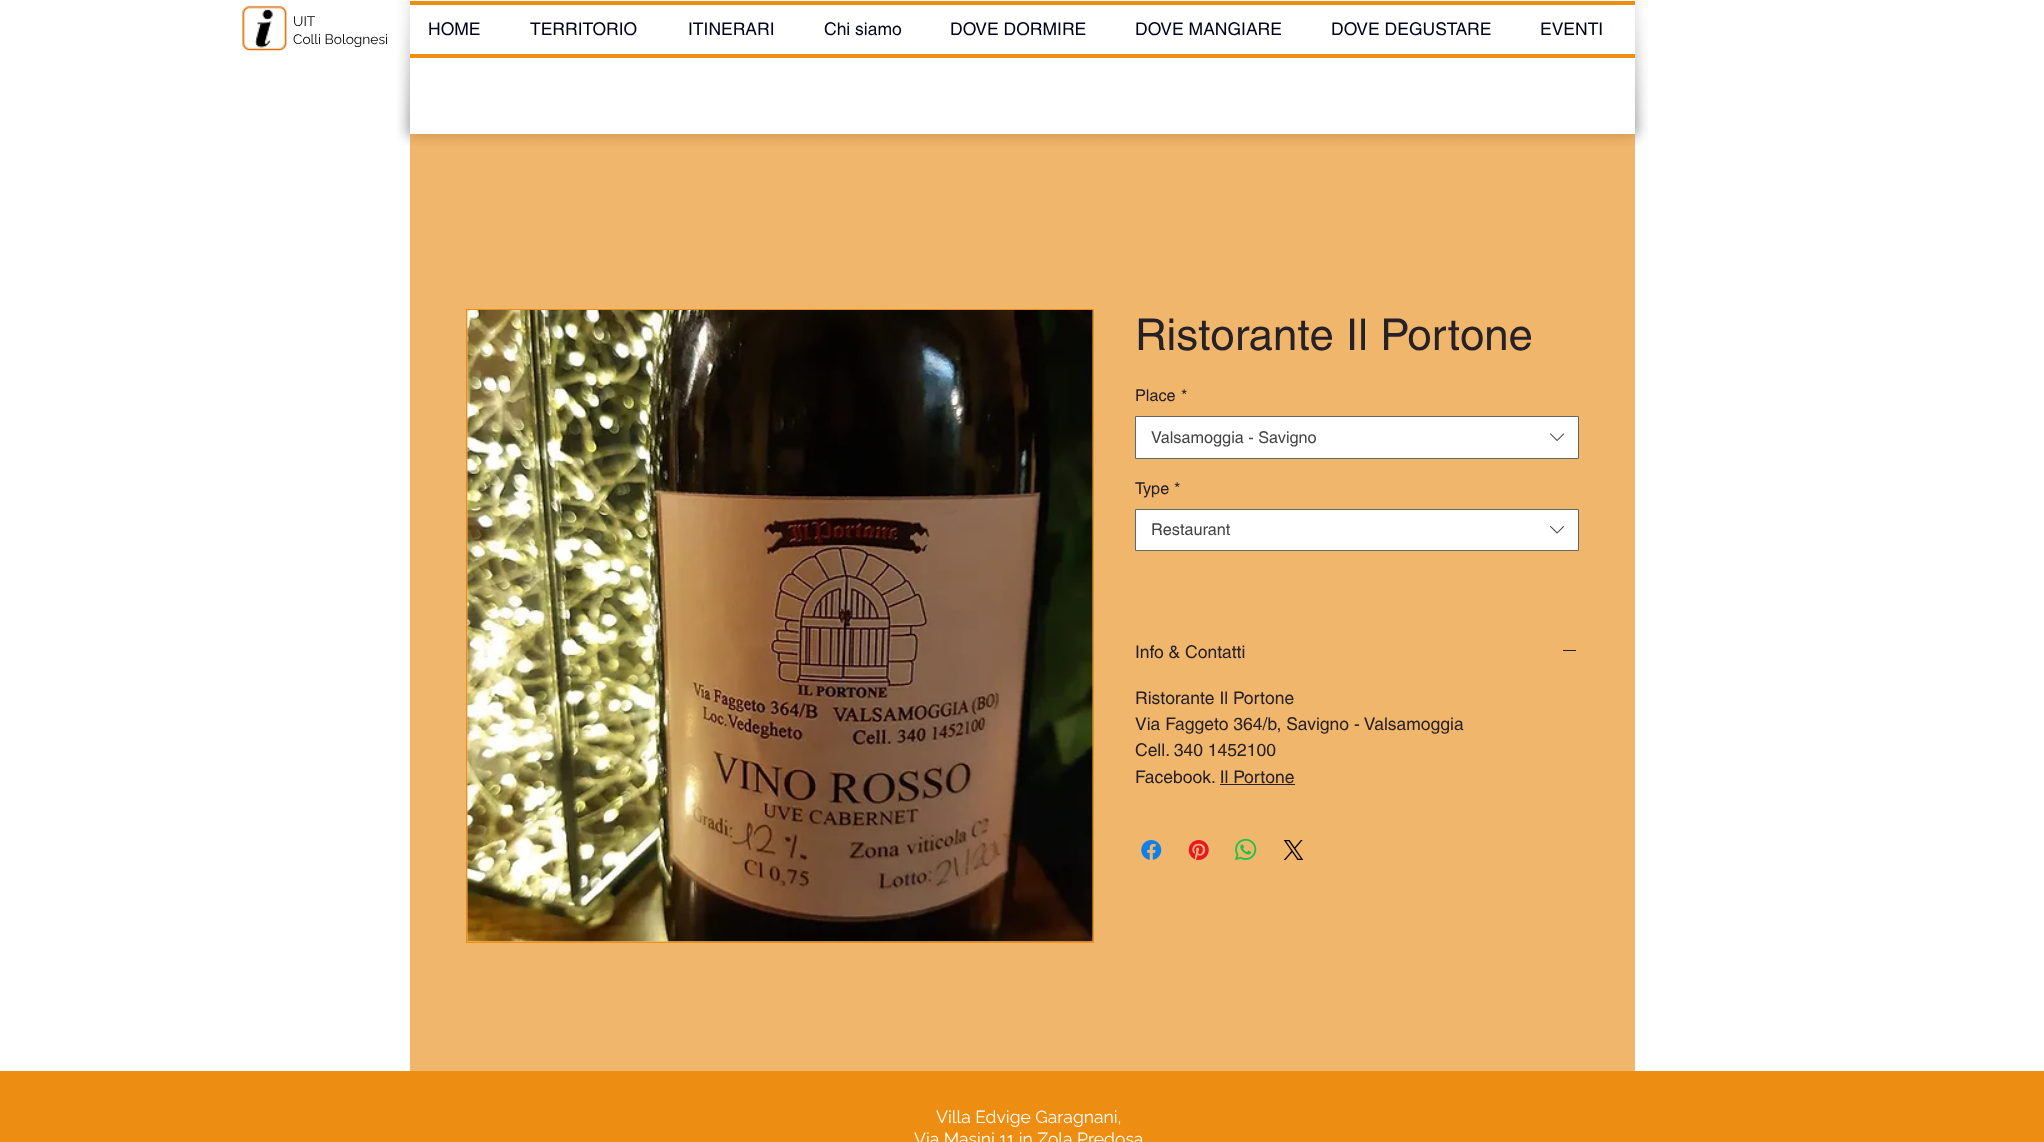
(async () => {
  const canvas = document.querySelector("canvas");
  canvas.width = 2044;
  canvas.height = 1142;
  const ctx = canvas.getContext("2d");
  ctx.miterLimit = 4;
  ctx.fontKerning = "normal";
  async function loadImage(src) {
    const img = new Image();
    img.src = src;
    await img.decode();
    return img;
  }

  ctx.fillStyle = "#ffffff";
  ctx.fillRect(0, 0, 2044, 1142);
  ctx.drawImage(await loadImage("img/1.png"), 397, 0, 57, 146);
  ctx.drawImage(await loadImage("img/2.png"), 453, 134, 1139, 12);
  ctx.drawImage(await loadImage("img/3.png"), 1591, 0, 57, 146);
  ctx.fillRect(410, 0, 1225, 134);
  ctx.drawImage(await loadImage("img/4.png"), 241, 5, 47, 47);
  for (const [x, y, w, h, color] of [
    [410, 1, 1225, 4, "#ed8d11"],
    [410, 54, 1225, 4, "#ed8d11"],
    [410, 134, 1225, 937, "rgba(202, 189, 205, 0.2)"],
    [410, 134, 1225, 937, "rgba(237, 141, 17, 0.6)"],
  ]) {
    ctx.fillStyle = color;
    ctx.fillRect(x, y, w, h);
  }
  ctx.strokeStyle = "#ed8d11";
  ctx.strokeRect(466.5, 309.5, 627, 633);
  ctx.drawImage(await loadImage("img/5.png"), 467, 310, 626, 632);
  ctx.fillStyle = "#ffffff";
  ctx.beginPath();
  ctx.rect(1135.5, 416.5, 443, 42);
  ctx.fill();
  ctx.strokeStyle = "#666666";
  ctx.stroke();
  ctx.drawImage(await loadImage("img/6.png"), 1550, 433, 15, 9);
  ctx.beginPath();
  ctx.rect(1135.5, 509.5, 443, 41);
  ctx.fill();
  ctx.stroke();
  ctx.drawImage(await loadImage("img/7.png"), 1550, 525, 15, 9);
  ctx.fillStyle = "#262027";
  ctx.fillRect(1563, 650, 13, 1);
  ctx.fillRect(1220, 784, 75, 1);
  ctx.drawImage(await loadImage("img/8.png"), 1141, 840, 21, 20);
  ctx.drawImage(await loadImage("img/9.png"), 1188, 840, 21, 20);
  ctx.drawImage(await loadImage("img/10.png"), 1235, 838, 22, 23);
  ctx.drawImage(await loadImage("img/11.png"), 1283, 840, 21, 20);
  ctx.fillStyle = "#ed8d11";
  ctx.fillRect(0, 1071, 2044, 71);
  ctx.font = "13.75px Raleway";
  ctx.fillStyle = "#000000";
  ctx.fillText("UIT", 293, 26);
  ctx.fillText("Colli Bolognesi", 293, 44);
  ctx.font = "17.5px helvetica";
  ctx.fillStyle = "#03031c";
  for (const [text, x, y] of [
    ["HOME", 428, 35],
    ["TERRITORIO", 530, 35],
    ["ITINERARI", 688, 35],
    ["Chi siamo", 824, 35],
    ["DOVE DORMIRE", 950, 35],
    ["DOVE MANGIARE", 1135, 35],
    ["DOVE DEGUSTARE", 1331, 35],
    ["EVENTI", 1540, 35],
  ]) {
    ctx.fillText(text, x, y);
  }
  ctx.font = "43.75px helvetica";
  ctx.fillStyle = "#262027";
  ctx.fillText("Ristorante Il Portone", 1135, 350);
  ctx.font = "16.25px helvetica";
  ctx.fillText("Place", 1135, 401);
  ctx.fillText("*", 1181, 401);
  ctx.fillStyle = "#444444";
  ctx.fillText("Valsamoggia - Savigno", 1151, 443);
  ctx.fillStyle = "#262027";
  ctx.fillText("Type", 1135, 494);
  ctx.fillText("*", 1174, 494);
  ctx.fillStyle = "#444444";
  ctx.fillText("Restaurant", 1151, 535);
  ctx.font = "17.5px helvetica";
  ctx.fillStyle = "#262027";
  for (const [text, x, y] of [
    ["Info & Contatti", 1135, 658],
    ["Ristorante Il Portone", 1135, 704],
    ["Via Faggeto 364/b, Savigno - Valsamoggia", 1135, 730],
    ["Cell. 340 1452100", 1135, 756],
    ["Facebook. Il Portone", 1135, 783],
  ]) {
    ctx.fillText(text, x, y);
  }
  ctx.font = "17.5px Raleway";
  ctx.fillStyle = "#ffffff";
  ctx.fillText("Villa Edvige Garagnani,", 936, 1123);
  ctx.fillText("Via Masini 11 in Zola Predosa", 914, 1145);
})();
